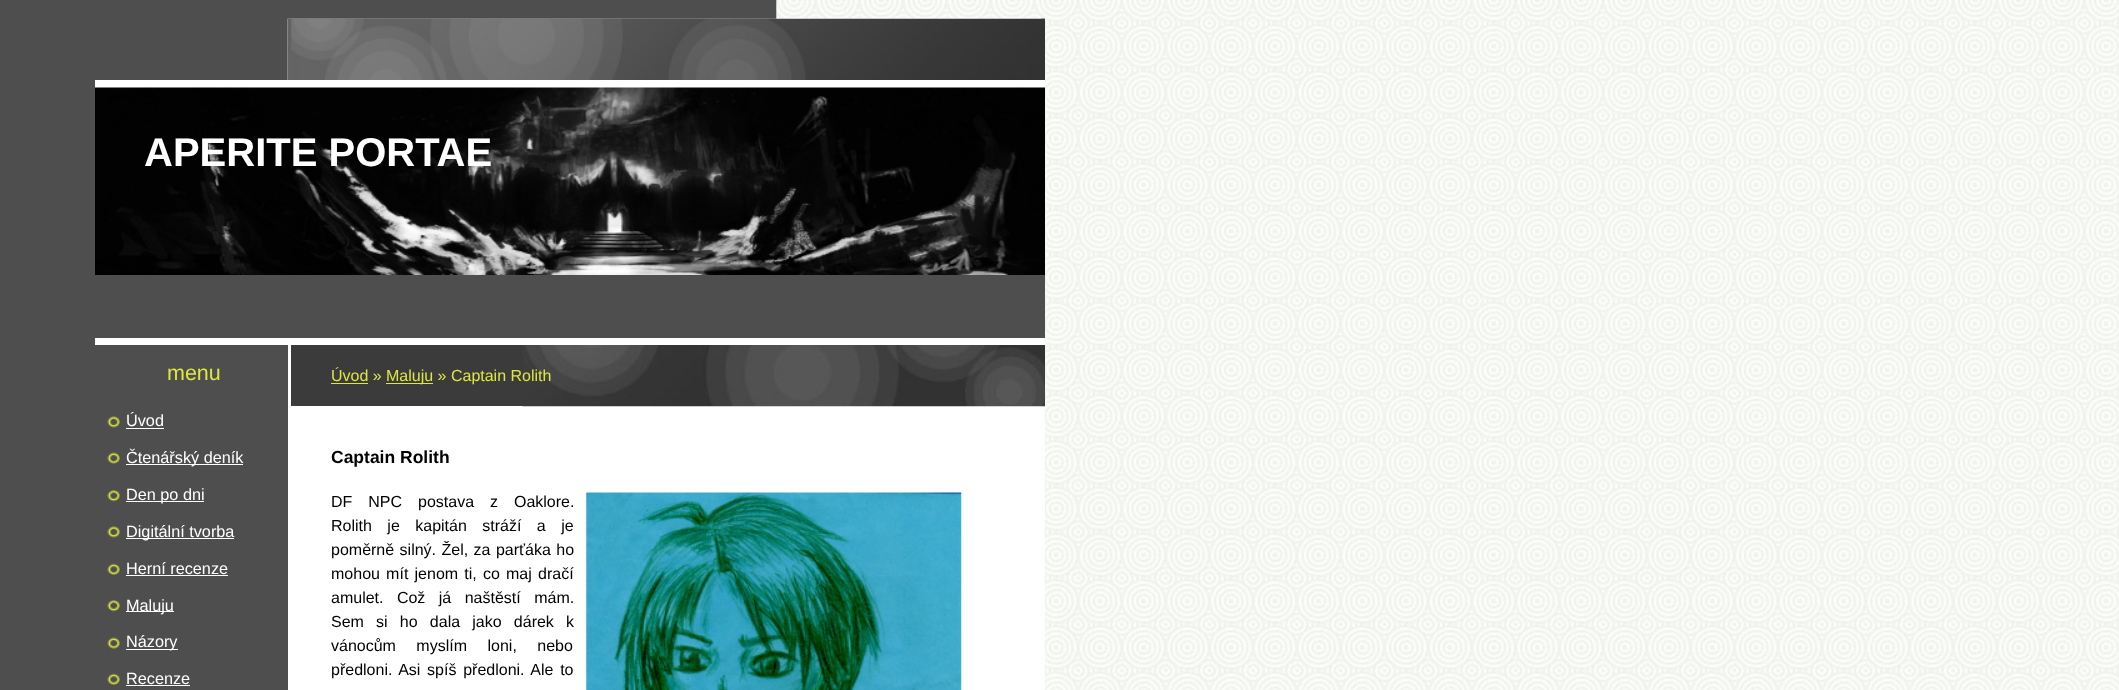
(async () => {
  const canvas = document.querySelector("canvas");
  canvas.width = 2119;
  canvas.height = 690;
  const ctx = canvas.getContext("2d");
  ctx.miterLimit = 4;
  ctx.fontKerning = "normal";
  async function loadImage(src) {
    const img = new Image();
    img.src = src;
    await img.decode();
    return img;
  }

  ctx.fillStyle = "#4e4e4e";
  ctx.fillRect(0, 0, 2119, 690);
  ctx.drawImage(await loadImage("img/1.png"), 776, 0, 1343, 690);
  ctx.drawImage(await loadImage("img/2.png"), 287, 18, 758, 672);
  ctx.fillStyle = "#ffffff";
  ctx.fillRect(95, 80, 950, 265);
  ctx.fillStyle = "#4e4e4e";
  ctx.fillRect(95, 275, 950, 63);
  ctx.drawImage(await loadImage("img/3.png"), 95, 87, 950, 188);
  ctx.drawImage(await loadImage("img/4.png"), 287, 18, 758, 62);
  ctx.fillRect(287, 345, 1, 345);
  ctx.drawImage(await loadImage("img/5.png"), 107, 416, 13, 12);
  ctx.fillStyle = "#ffffff";
  ctx.fillRect(126, 428, 38, 1);
  ctx.drawImage(await loadImage("img/6.png"), 107, 452, 13, 12);
  ctx.fillRect(126, 464, 117, 1);
  ctx.drawImage(await loadImage("img/7.png"), 107, 490, 13, 12);
  ctx.fillRect(126, 501, 78, 1);
  ctx.drawImage(await loadImage("img/5.png"), 107, 526, 13, 12);
  ctx.fillRect(126, 538, 108, 1);
  ctx.drawImage(await loadImage("img/8.png"), 107, 563, 13, 12);
  ctx.fillRect(126, 575, 102, 1);
  ctx.drawImage(await loadImage("img/7.png"), 107, 600, 13, 12);
  ctx.fillRect(126, 611, 48, 1);
  ctx.drawImage(await loadImage("img/6.png"), 107, 637, 13, 12);
  ctx.fillRect(126, 649, 52, 1);
  ctx.drawImage(await loadImage("img/8.png"), 107, 673, 13, 12);
  for (const [x, y, w, h, color] of [
    [126, 685, 64, 1, "#ffffff"],
    [1041, 406, 4, 284, "#ffffff"],
    [291, 345, 232, 61, "#3b3b3b"],
  ]) {
    ctx.fillStyle = color;
    ctx.fillRect(x, y, w, h);
  }
  ctx.drawImage(await loadImage("img/9.png"), 522, 345, 523, 62);
  ctx.fillStyle = "#dde742";
  ctx.fillRect(331, 383, 37, 1);
  ctx.fillRect(386, 383, 47, 1);
  ctx.drawImage(await loadImage("img/10.png"), 586, 492, 376, 198);
  ctx.font = "bold 40px Liberation Sans";
  ctx.fillStyle = "#ffffff";
  ctx.fillText("APERITE PORTAE", 144, 166);
  ctx.font = "21.5px Liberation Sans";
  ctx.fillStyle = "#dde742";
  ctx.fillText("menu", 167, 380);
  ctx.font = "16.25px Liberation Sans";
  ctx.fillStyle = "#ffffff";
  for (const [text, x, y] of [
    ["Úvod", 126, 426],
    ["Čtenářský deník", 126, 463],
    ["Den po dni", 126, 500],
    ["Digitální tvorba", 126, 537],
    ["Herní recenze", 126, 574],
    ["Maluju", 126, 611],
    ["Názory", 126, 647],
    ["Recenze", 126, 684],
  ]) {
    ctx.fillText(text, x, y);
  }
  ctx.font = "16px Liberation Sans";
  ctx.fillStyle = "#dde742";
  ctx.fillText("Úvod »", 331, 381);
  ctx.fillText("Maluju » Captain Rolith", 386, 381);
  ctx.font = "bold 17.5px Liberation Sans";
  ctx.fillStyle = "#000000";
  ctx.fillText("Captain Rolith", 331, 463);
  ctx.wordSpacing = "11.5px";
  ctx.font = "16px Liberation Sans";
  ctx.fillText("DF NPC postava z Oaklore.", 331, 507);
  ctx.wordSpacing = "11px";
  ctx.fillText("Rolith je kapitán stráží a je", 331, 531);
  ctx.wordSpacing = "1px";
  ctx.fillText("poměrně silný. Žel, za parťáka ho", 331, 555);
  ctx.wordSpacing = "1.75px";
  ctx.fillText("mohou mít jenom ti, co maj dračí", 331, 579);
  ctx.wordSpacing = "9px";
  ctx.fillText("amulet. Což já naštěstí mám.", 331, 603);
  ctx.wordSpacing = "7.75px";
  ctx.fillText("Sem si ho dala jako dárek k", 331, 627);
  ctx.wordSpacing = "16px";
  ctx.fillText("vánocům myslím loni, nebo", 331, 651);
  ctx.wordSpacing = "2.25px";
  ctx.fillText("předloni. Asi spíš předloni. Ale to", 331, 675);
})();
